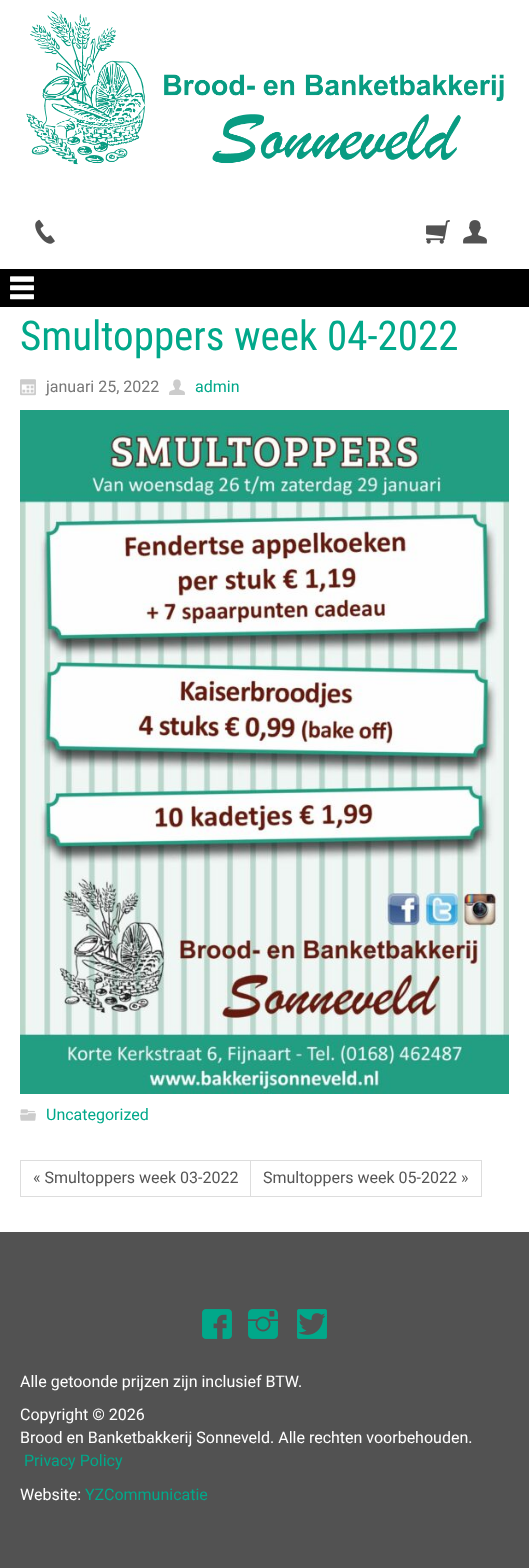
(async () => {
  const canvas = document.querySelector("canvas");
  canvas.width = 529;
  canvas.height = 1568;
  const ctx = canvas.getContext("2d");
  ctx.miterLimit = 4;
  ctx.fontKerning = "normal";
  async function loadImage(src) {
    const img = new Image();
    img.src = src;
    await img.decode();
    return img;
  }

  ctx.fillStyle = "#ffffff";
  ctx.fillRect(0, 0, 529, 1568);
  ctx.drawImage(await loadImage("img/1.png"), 26, 11, 478, 154);
  ctx.drawImage(await loadImage("img/2.png"), 35, 219, 20, 25);
  ctx.drawImage(await loadImage("img/3.png"), 426, 220, 24, 24);
  ctx.drawImage(await loadImage("img/4.png"), 463, 220, 24, 24);
  ctx.fillStyle = "#000000";
  ctx.fillRect(0, 269, 529, 38);
  ctx.drawImage(await loadImage("img/5.png"), 10, 276, 24, 24);
  ctx.drawImage(await loadImage("img/6.png"), 20, 379, 16, 17);
  ctx.drawImage(await loadImage("img/7.png"), 169, 379, 16, 16);
  ctx.drawImage(await loadImage("img/8.png"), 20, 410, 489, 684);
  ctx.drawImage(await loadImage("img/9.png"), 20, 1109, 16, 12);
  ctx.strokeStyle = "#dddddd";
  ctx.strokeRect(20.5, 1160.5, 230, 36);
  ctx.strokeRect(250.5, 1160.5, 231, 36);
  ctx.fillStyle = "#525252";
  ctx.fillRect(0, 1232, 529, 336);
  ctx.drawImage(await loadImage("img/10.png"), 202, 1309, 30, 30);
  ctx.drawImage(await loadImage("img/11.png"), 248, 1309, 30, 30);
  ctx.drawImage(await loadImage("img/12.png"), 297, 1309, 30, 30);
  ctx.font = "41px Roboto Condensed";
  ctx.fillStyle = "#01a88a";
  ctx.fillText("Smultoppers week 04-2022", 20, 350);
  ctx.font = "16px Roboto";
  ctx.fillStyle = "#777777";
  ctx.fillText("januari 25, 2022", 46, 392);
  ctx.fillStyle = "#01a88a";
  ctx.fillText("admin", 195, 392);
  ctx.fillText("Uncategorized", 46, 1120);
  ctx.fillStyle = "#555555";
  ctx.fillText("« Smultoppers week 03-2022", 33, 1183);
  ctx.fillText("Smultoppers week 05-2022 »", 263, 1183);
  ctx.fillStyle = "#ffffff";
  for (const [text, x, y] of [
    ["Alle getoonde prijzen zijn inclusief BTW.", 20, 1387],
    ["Copyright © 2026", 20, 1420],
    ["Brood en Banketbakkerij Sonneveld. Alle rechten voorbehouden.", 20, 1443],
  ]) {
    ctx.fillText(text, x, y);
  }
  ctx.fillStyle = "#01a88a";
  ctx.fillText("Privacy Policy", 24, 1466);
  ctx.fillStyle = "#ffffff";
  ctx.fillText("Website:", 20, 1500);
  ctx.fillStyle = "#01a88a";
  ctx.fillText("YZCommunicatie", 85, 1500);
})();
